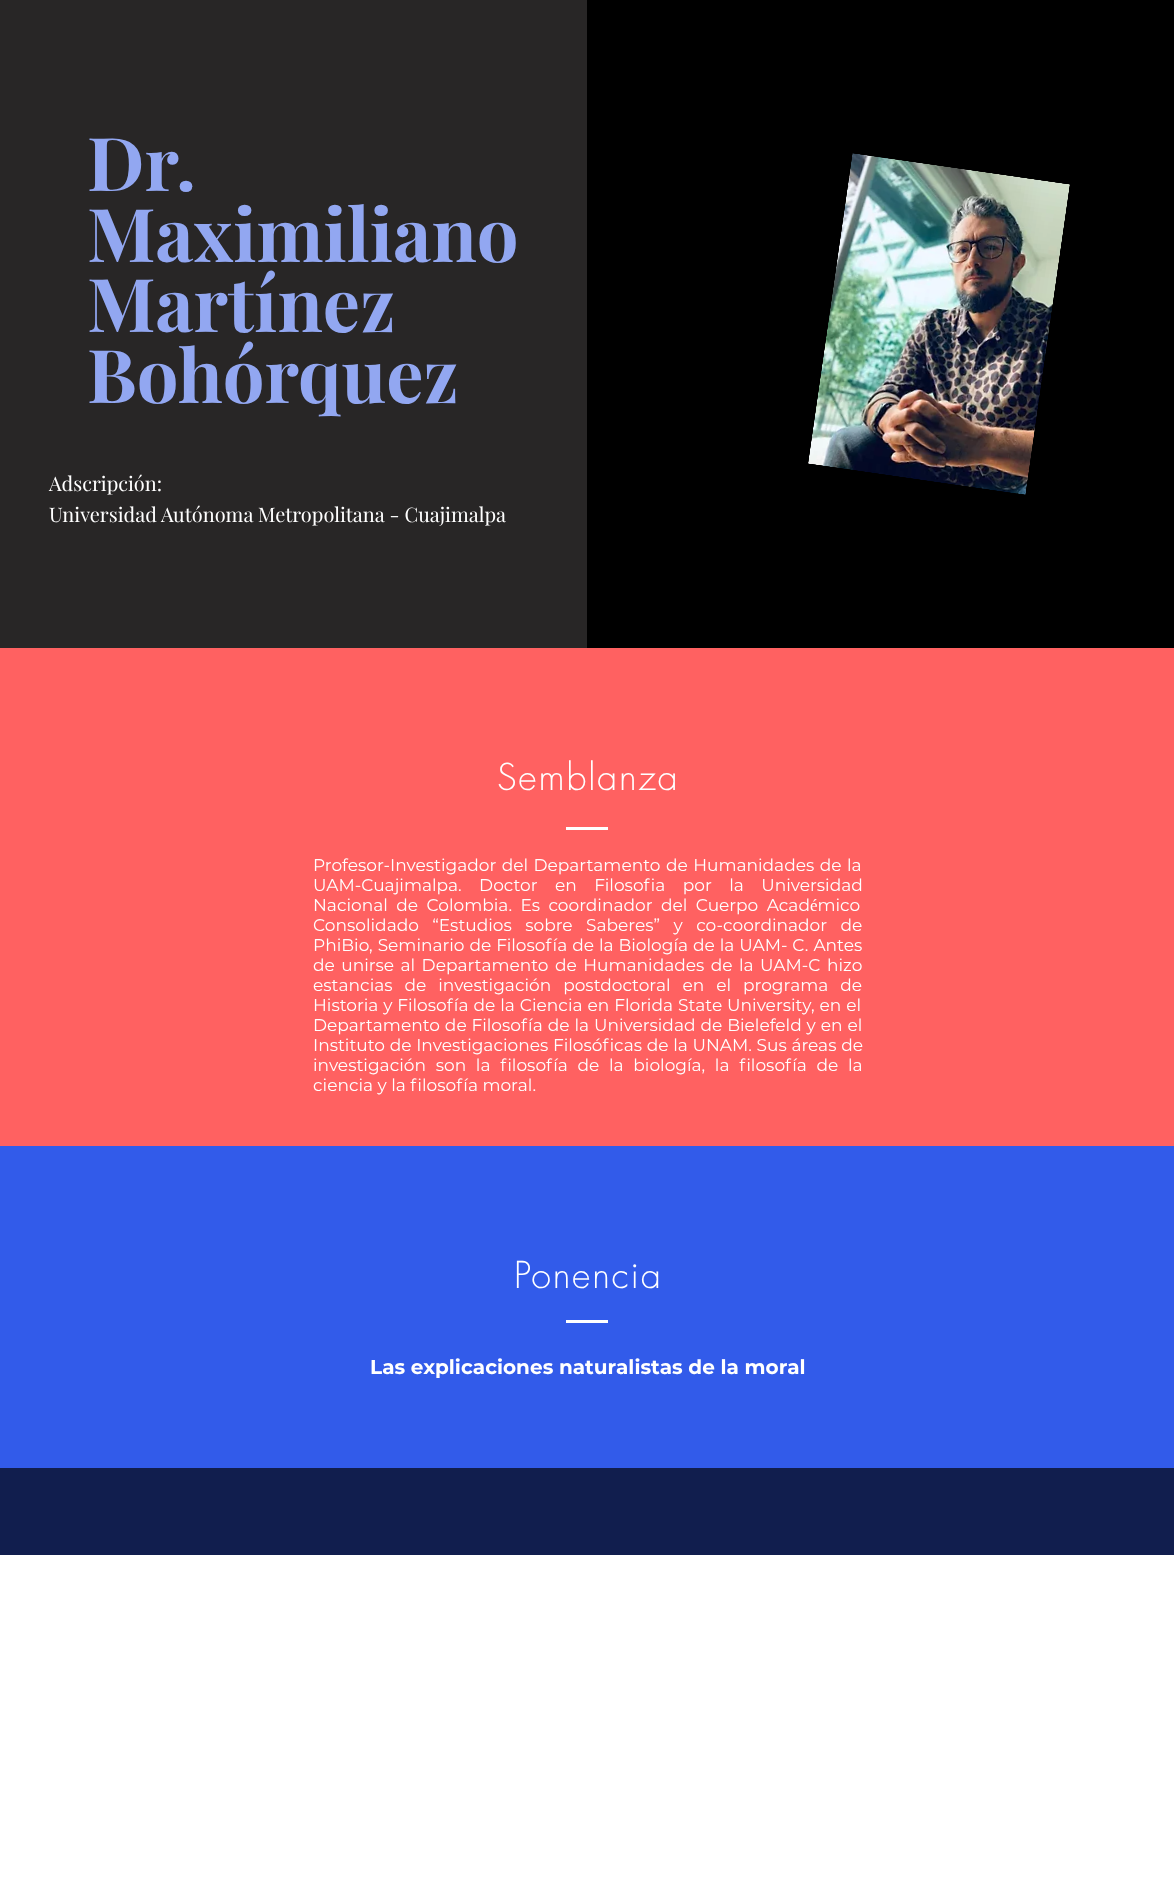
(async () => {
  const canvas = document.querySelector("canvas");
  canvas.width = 1174;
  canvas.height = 1903;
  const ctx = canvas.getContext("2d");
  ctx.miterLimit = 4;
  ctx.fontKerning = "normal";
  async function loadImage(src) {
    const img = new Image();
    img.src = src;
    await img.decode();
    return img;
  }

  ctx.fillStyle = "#ffffff";
  ctx.fillRect(0, 0, 1174, 1903);
  ctx.fillStyle = "#282626";
  ctx.fillRect(0, 0, 587, 648);
  ctx.fillStyle = "#000000";
  ctx.fillRect(587, 0, 587, 648);
  ctx.drawImage(await loadImage("img/1.png"), 808, 153, 262, 342);
  for (const [x, y, w, h, color] of [
    [0, 648, 1174, 498, "#ff6161"],
    [566, 827, 42, 3, "#ffffff"],
    [0, 1146, 1174, 322, "#325bea"],
    [566, 1320, 42, 3, "#ffffff"],
    [0, 1468, 1174, 87, "#111e4e"],
  ]) {
    ctx.fillStyle = color;
    ctx.fillRect(x, y, w, h);
  }
  ctx.font = "bold 74px Playfair Display";
  ctx.fillStyle = "#92a7f1";
  for (const [text, x, y] of [
    ["Dr.", 87, 191],
    ["Maximiliano", 87, 262],
    ["Martínez", 87, 332],
    ["Bohórquez", 87, 403],
  ]) {
    ctx.fillText(text, x, y);
  }
  ctx.font = "20px Playfair Display";
  ctx.fillStyle = "#ffffff";
  ctx.fillText("Adscripción:", 49, 491);
  ctx.fillText("Universidad Autónoma Metropolitana - Cuajimalpa", 49, 522);
  ctx.letterSpacing = "1.75px";
  ctx.font = "300 36px futura";
  ctx.fillText("Semblanza", 497, 790);
  ctx.letterSpacing = "0px";
  ctx.wordSpacing = "1px";
  ctx.font = "17px Montserrat";
  ctx.fillText("Profesor-Investigador del Departamento de Humanidades de la", 313, 871);
  ctx.wordSpacing = "13px";
  ctx.fillText("UAM-Cuajimalpa. Doctor en Filosofia por la Universidad", 313, 891);
  ctx.wordSpacing = "4px";
  ctx.fillText("Nacional de Colombia. Es coordinador del Cuerpo Académico", 313, 911);
  ctx.wordSpacing = "9px";
  ctx.fillText("Consolidado “Estudios sobre Saberes” y co-coordinador de", 313, 931);
  ctx.wordSpacing = "0.5px";
  ctx.fillText("PhiBio, Seminario de Filosofía de la Biología de la UAM- C. Antes", 313, 951);
  ctx.wordSpacing = "2px";
  ctx.fillText("de unirse al Departamento de Humanidades de la UAM-C hizo", 313, 971);
  ctx.wordSpacing = "7.5px";
  ctx.fillText("estancias de investigación postdoctoral en el programa de", 313, 991);
  ctx.wordSpacing = "0.5px";
  ctx.fillText("Historia y Filosofía de la Ciencia en Florida State University, en el", 313, 1011);
  ctx.fillText("Departamento de Filosofía de la Universidad de Bielefeld y en el", 313, 1031);
  ctx.wordSpacing = "0.25px";
  ctx.fillText("Instituto de Investigaciones Filosóficas de la UNAM. Sus áreas de", 313, 1051);
  ctx.wordSpacing = "5.25px";
  ctx.fillText("investigación son la filosofía de la biología, la filosofía de la", 313, 1071);
  ctx.wordSpacing = "0px";
  ctx.fillText("ciencia y la filosofía moral.", 313, 1091);
  ctx.letterSpacing = "1.75px";
  ctx.font = "300 36px futura";
  ctx.fillText("Ponencia", 514, 1288);
  ctx.letterSpacing = "0px";
  ctx.font = "bold 20px Montserrat";
  ctx.fillText("Las explicaciones naturalistas de la moral", 370, 1374);
})();
